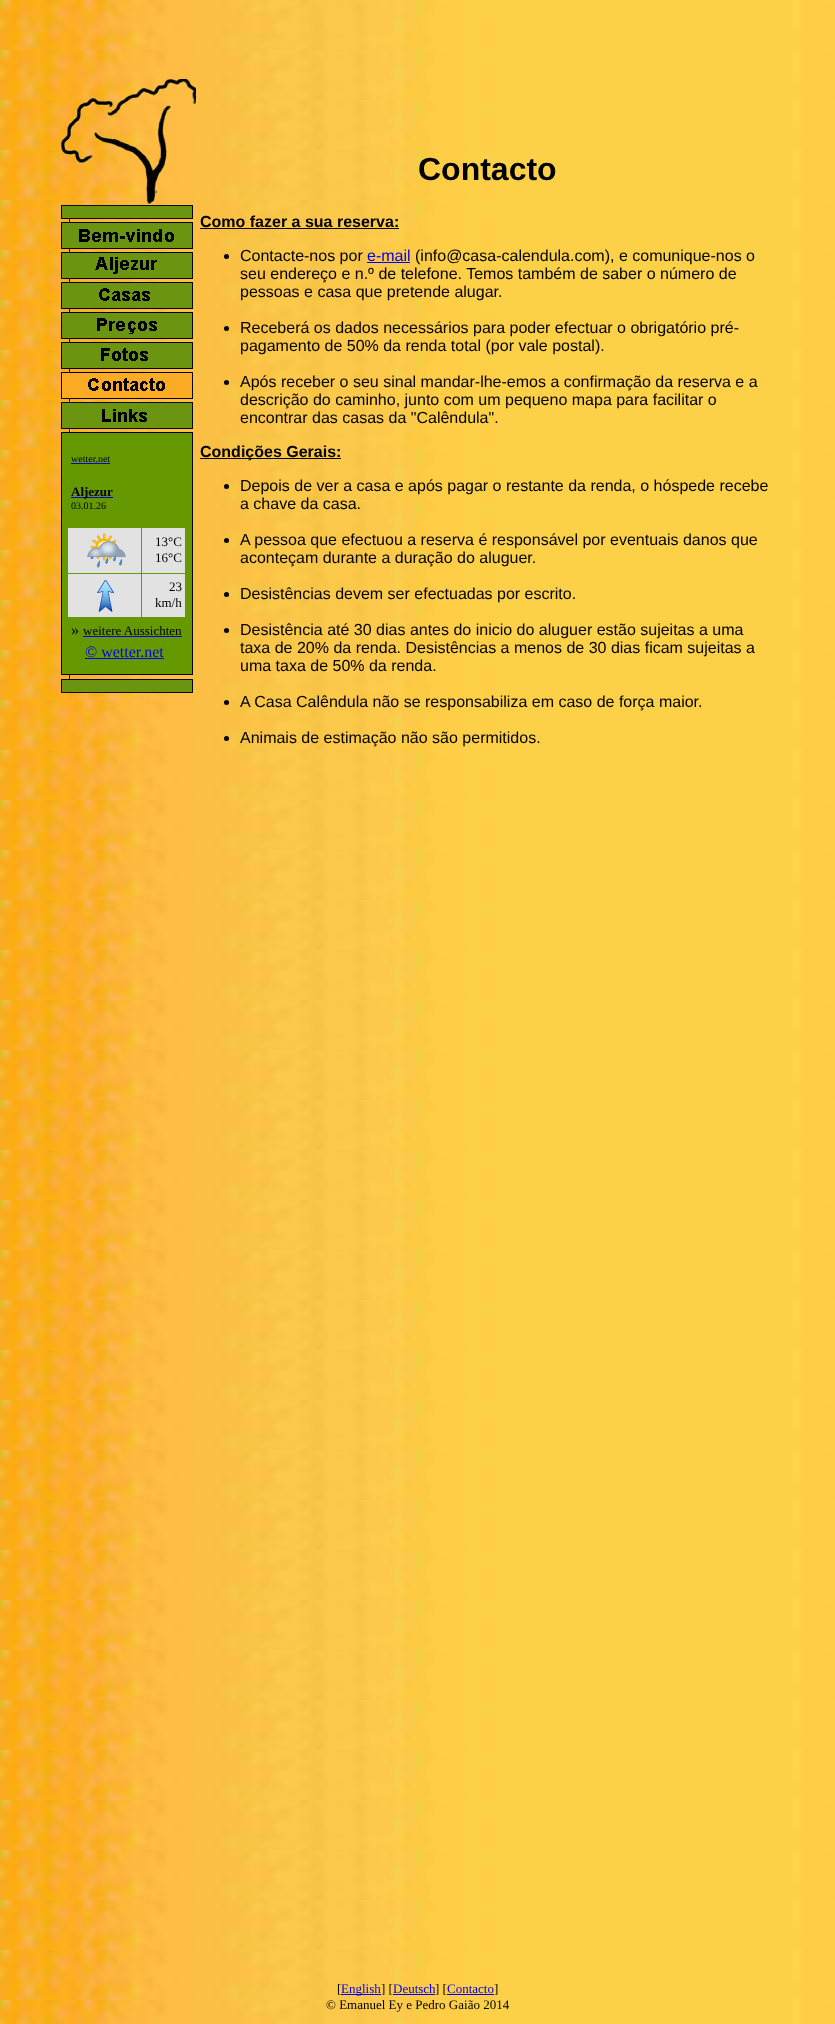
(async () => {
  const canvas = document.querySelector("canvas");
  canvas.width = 835;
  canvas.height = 2024;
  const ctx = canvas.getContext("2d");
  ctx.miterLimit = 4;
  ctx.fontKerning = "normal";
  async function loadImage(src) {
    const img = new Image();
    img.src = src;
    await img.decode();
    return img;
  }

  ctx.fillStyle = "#ffffff";
  ctx.fillRect(0, 0, 835, 2024);
  ctx.drawImage(await loadImage("img/1.png"), 0, 0, 835, 2024);
  ctx.drawImage(await loadImage("img/2.png"), 61, 79, 135, 125);
  ctx.drawImage(await loadImage("img/3.png"), 61, 205, 132, 16);
  ctx.drawImage(await loadImage("img/4.png"), 61, 221, 132, 30);
  ctx.drawImage(await loadImage("img/5.png"), 61, 251, 132, 30);
  ctx.drawImage(await loadImage("img/6.png"), 61, 281, 132, 30);
  ctx.drawImage(await loadImage("img/7.png"), 61, 311, 132, 30);
  ctx.drawImage(await loadImage("img/8.png"), 61, 341, 132, 30);
  ctx.drawImage(await loadImage("img/9.png"), 61, 371, 132, 30);
  ctx.drawImage(await loadImage("img/10.png"), 61, 401, 132, 30);
  ctx.drawImage(await loadImage("img/11.png"), 61, 431, 132, 246);
  for (const [x, y, w, h, color] of [
    [71, 463, 39, 1, "#0000ee"],
    [71, 497, 42, 1, "#0000ee"],
    [68, 528, 73, 45, "#e2e2e2"],
  ]) {
    ctx.fillStyle = color;
    ctx.fillRect(x, y, w, h);
  }
  ctx.drawImage(await loadImage("img/12.png"), 87, 533, 39, 35);
  ctx.fillRect(142, 528, 43, 45);
  ctx.fillRect(68, 574, 73, 43);
  ctx.drawImage(await loadImage("img/13.png"), 97, 580, 17, 32);
  for (const [x, y, w, h, color] of [
    [142, 574, 43, 43, "#e2e2e2"],
    [83, 636, 99, 1, "#0000ee"],
    [85, 658, 79, 1, "#0000ee"],
  ]) {
    ctx.fillStyle = color;
    ctx.fillRect(x, y, w, h);
  }
  ctx.drawImage(await loadImage("img/14.png"), 61, 677, 132, 16);
  ctx.fillStyle = "#000000";
  ctx.fillRect(200, 228, 199, 1);
  ctx.beginPath();
  ctx.arc(226.5, 256.5, 2.5, 0, Math.PI * 2);
  ctx.fill();
  ctx.fillStyle = "#0000ee";
  ctx.fillRect(367, 262, 43, 1);
  ctx.fillStyle = "#000000";
  ctx.beginPath();
  ctx.arc(226.5, 328.5, 2.5, 0, Math.PI * 2);
  ctx.fill();
  ctx.beginPath();
  ctx.arc(226.5, 382.5, 2.5, 0, Math.PI * 2);
  ctx.fill();
  ctx.fillRect(200, 458, 141, 1);
  ctx.beginPath();
  ctx.arc(226.5, 486.5, 2.5, 0, Math.PI * 2);
  ctx.fill();
  ctx.beginPath();
  ctx.arc(226.5, 540.5, 2.5, 0, Math.PI * 2);
  ctx.fill();
  ctx.beginPath();
  ctx.arc(226.5, 594.5, 2.5, 0, Math.PI * 2);
  ctx.fill();
  ctx.beginPath();
  ctx.arc(226.5, 630.5, 2.5, 0, Math.PI * 2);
  ctx.fill();
  ctx.beginPath();
  ctx.arc(226.5, 702.5, 2.5, 0, Math.PI * 2);
  ctx.fill();
  ctx.beginPath();
  ctx.arc(226.5, 738.5, 2.5, 0, Math.PI * 2);
  ctx.fill();
  for (const [x, y, w, h, color] of [
    [341, 1994, 40, 1, "#0000ee"],
    [393, 1994, 42, 1, "#0000ee"],
    [447, 1994, 47, 1, "#0000ee"],
  ]) {
    ctx.fillStyle = color;
    ctx.fillRect(x, y, w, h);
  }
  ctx.font = "bold 32px Liberation Sans";
  ctx.fillStyle = "#000000";
  ctx.fillText("Contacto", 418, 180);
  ctx.font = "10px Liberation Serif";
  ctx.fillText("wetter.net", 71, 462);
  ctx.font = "bold 13px Liberation Serif";
  ctx.fillText("Aljezur", 71, 496);
  ctx.font = "10px Liberation Serif";
  ctx.fillText("03.01.26", 71, 509);
  ctx.font = "13px Liberation Serif";
  for (const [text, x, y] of [
    ["13°C", 155, 546],
    ["16°C", 155, 562],
    ["23", 169, 591],
    ["km/h", 155, 607],
  ]) {
    ctx.fillText(text, x, y);
  }
  ctx.font = "16px Liberation Serif";
  ctx.fillText("»", 71, 635);
  ctx.font = "13px Liberation Serif";
  ctx.fillText("weitere Aussichten", 83, 635);
  ctx.font = "16px Liberation Serif";
  ctx.fillStyle = "#0000ee";
  ctx.fillText("© wetter.net", 85, 657);
  ctx.font = "bold 16px Liberation Sans";
  ctx.fillStyle = "#000000";
  ctx.fillText("Como fazer a sua reserva:", 200, 227);
  ctx.font = "16px Liberation Sans";
  ctx.fillText("Contacte-nos por", 240, 261);
  ctx.fillStyle = "#0000ee";
  ctx.fillText("e-mail", 367, 261);
  ctx.fillStyle = "#000000";
  for (const [text, x, y] of [
    ["(info@casa-calendula.com), e comunique-nos o", 415, 261],
    ["seu endereço e n.º de telefone. Temos também de saber o número de", 240, 279],
    ["pessoas e casa que pretende alugar.", 240, 297],
    ["Receberá os dados necessários para poder efectuar o obrigatório pré-", 240, 333],
    ["pagamento de 50% da renda total (por vale postal).", 240, 351],
    ["Após receber o seu sinal mandar-lhe-emos a confirmação da reserva e a", 240, 387],
    ["descrição do caminho, junto com um pequeno mapa para facilitar o", 240, 405],
    ["encontrar das casas da \"Calêndula\".", 240, 423],
  ]) {
    ctx.fillText(text, x, y);
  }
  ctx.font = "bold 16px Liberation Sans";
  ctx.fillText("Condições Gerais:", 200, 457);
  ctx.font = "16px Liberation Sans";
  for (const [text, x, y] of [
    ["Depois de ver a casa e após pagar o restante da renda, o hóspede recebe", 240, 491],
    ["a chave da casa.", 240, 509],
    ["A pessoa que efectuou a reserva é responsável por eventuais danos que", 240, 545],
    ["aconteçam durante a duração do aluguer.", 240, 563],
    ["Desistências devem ser efectuadas por escrito.", 240, 599],
    ["Desistência até 30 dias antes do inicio do aluguer estão sujeitas a uma", 240, 635],
    ["taxa de 20% da renda. Desistências a menos de 30 dias ficam sujeitas a", 240, 653],
    ["uma taxa de 50% da renda.", 240, 671],
    ["A Casa Calêndula não se responsabiliza em caso de força maior.", 240, 707],
    ["Animais de estimação não são permitidos.", 240, 743],
  ]) {
    ctx.fillText(text, x, y);
  }
  ctx.font = "13px Liberation Serif";
  ctx.fillText("[", 337, 1993);
  ctx.fillStyle = "#0000ee";
  ctx.fillText("English", 341, 1993);
  ctx.fillStyle = "#000000";
  ctx.fillText("] [", 381, 1993);
  ctx.fillStyle = "#0000ee";
  ctx.fillText("Deutsch", 393, 1993);
  ctx.fillStyle = "#000000";
  ctx.fillText("] [", 435, 1993);
  ctx.fillStyle = "#0000ee";
  ctx.fillText("Contacto", 447, 1993);
  ctx.fillStyle = "#000000";
  ctx.fillText("]", 494, 1993);
  ctx.fillText("© Emanuel Ey e Pedro Gaião 2014", 326, 2009);
})();
